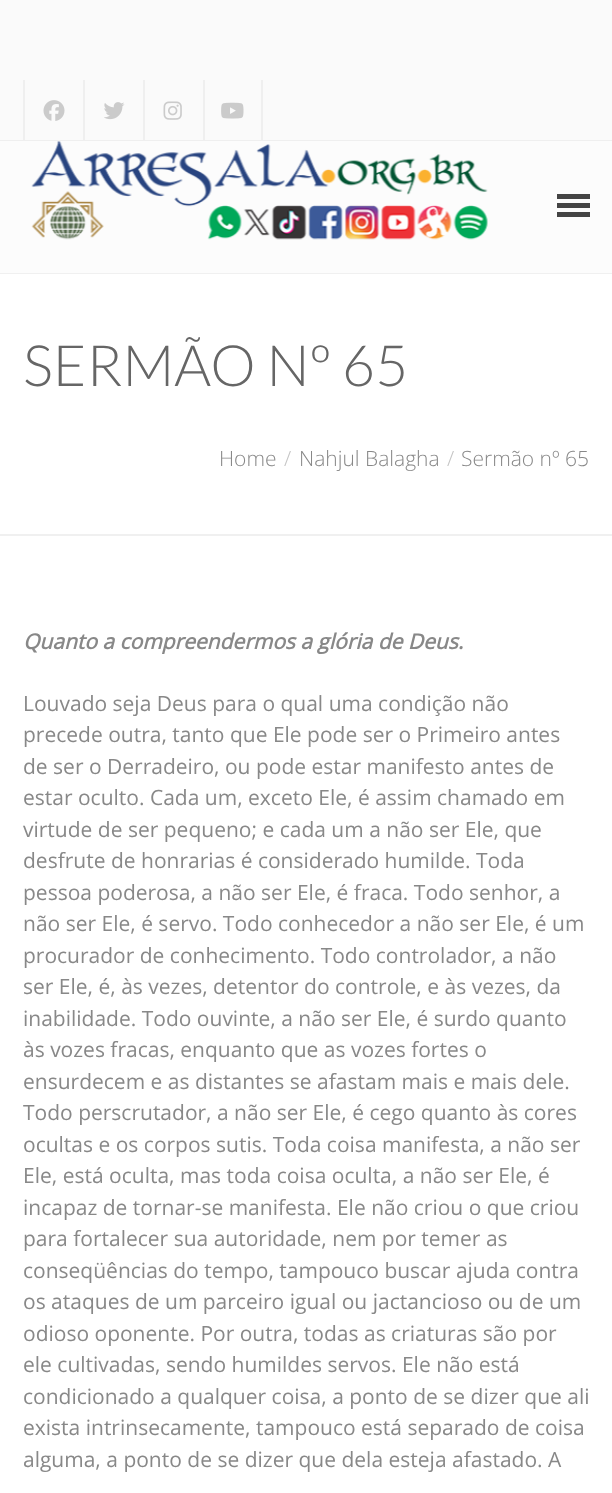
(async () => {
  const canvas = document.querySelector("canvas");
  canvas.width = 612;
  canvas.height = 1493;
  const ctx = canvas.getContext("2d");
  ctx.miterLimit = 4;
  ctx.fontKerning = "normal";
  async function loadImage(src) {
    const img = new Image();
    img.src = src;
    await img.decode();
    return img;
  }

  ctx.fillStyle = "#ffffff";
  ctx.fillRect(0, 0, 612, 1493);
  for (const [x, y, w, h, color] of [
    [0, 0, 612, 140, "#fafafa"],
    [0, 140, 612, 1, "#efefef"],
    [23, 80, 2, 63, "#efefef"],
  ]) {
    ctx.fillStyle = color;
    ctx.fillRect(x, y, w, h);
  }
  ctx.drawImage(await loadImage("img/1.png"), 43, 100, 22, 21);
  ctx.fillRect(83, 80, 2, 63);
  ctx.drawImage(await loadImage("img/2.png"), 104, 102, 21, 18);
  ctx.fillRect(143, 80, 2, 63);
  ctx.drawImage(await loadImage("img/3.png"), 163, 101, 19, 19);
  ctx.fillRect(261, 80, 2, 63);
  ctx.fillRect(203, 80, 2, 63);
  ctx.drawImage(await loadImage("img/4.png"), 221, 102, 23, 17);
  ctx.fillStyle = "#f0f0f0";
  ctx.fillRect(0, 273, 612, 1);
  ctx.fillStyle = "#fcfcfc";
  ctx.fillRect(0, 141, 612, 132);
  ctx.drawImage(await loadImage("img/5.png"), 31, 141, 457, 99);
  for (const [x, y, w, h, color] of [
    [557, 194, 33, 5, "#444444"],
    [557, 203, 33, 5, "#444444"],
    [557, 212, 33, 5, "#444444"],
    [0, 534, 612, 2, "#f0f0f0"],
  ]) {
    ctx.fillStyle = color;
    ctx.fillRect(x, y, w, h);
  }
  ctx.font = "300 57px Lato";
  ctx.fillStyle = "#666666";
  ctx.fillText("SERMÃO Nº 65", 23, 386);
  ctx.font = "300 21px Open Sans";
  ctx.fillStyle = "#888888";
  ctx.fillText("Home", 219, 466);
  ctx.fillStyle = "#c4c4c4";
  ctx.fillText("/", 284, 466);
  ctx.fillStyle = "#888888";
  ctx.fillText("Nahjul Balagha", 299, 466);
  ctx.fillStyle = "#c4c4c4";
  ctx.fillText("/", 447, 466);
  ctx.fillStyle = "#888888";
  ctx.fillText("Sermão nº 65", 461, 466);
  ctx.font = "italic bold 21px Open Sans";
  ctx.fillText("Quanto a compreendermos a glória de Deus.", 23, 649);
  ctx.font = "21px Open Sans";
  for (const [text, x, y] of [
    ["Louvado seja Deus para o qual uma condição não", 23, 711],
    ["precede outra, tanto que Ele pode ser o Primeiro antes", 23, 742],
    ["de ser o Derradeiro, ou pode estar manifesto antes de", 23, 774],
    ["estar oculto. Cada um, exceto Ele, é assim chamado em", 23, 805],
    ["virtude de ser pequeno; e cada um a não ser Ele, que", 23, 837],
    ["desfrute de honrarias é considerado humilde. Toda", 23, 868],
    ["pessoa poderosa, a não ser Ele, é fraca. Todo senhor, a", 23, 900],
    ["não ser Ele, é servo. Todo conhecedor a não ser Ele, é um", 23, 931],
    ["procurador de conhecimento. Todo controlador, a não", 23, 963],
    ["ser Ele, é, às vezes, detentor do controle, e às vezes, da", 23, 994],
    ["inabilidade. Todo ouvinte, a não ser Ele, é surdo quanto", 23, 1026],
    ["às vozes fracas, enquanto que as vozes fortes o", 23, 1057],
    ["ensurdecem e as distantes se afastam mais e mais dele.", 23, 1089],
    ["Todo perscrutador, a não ser Ele, é cego quanto às cores", 23, 1120],
    ["ocultas e os corpos sutis. Toda coisa manifesta, a não ser", 23, 1152],
    ["Ele, está oculta, mas toda coisa oculta, a não ser Ele, é", 23, 1183],
    ["incapaz de tornar-se manifesta. Ele não criou o que criou", 23, 1215],
    ["para fortalecer sua autoridade, nem por temer as", 23, 1246],
    ["conseqüências do tempo, tampouco buscar ajuda contra", 23, 1278],
    ["os ataques de um parceiro igual ou jactancioso ou de um", 23, 1309],
    ["odioso oponente. Por outra, todas as criaturas são por", 23, 1341],
    ["ele cultivadas, sendo humildes servos. Ele não está", 23, 1372],
    ["condicionado a qualquer coisa, a ponto de se dizer que ali", 23, 1404],
    ["exista intrinsecamente, tampouco está separado de coisa", 23, 1435],
    ["alguma, a ponto de se dizer que dela esteja afastado. A", 23, 1467],
  ]) {
    ctx.fillText(text, x, y);
  }
})();
